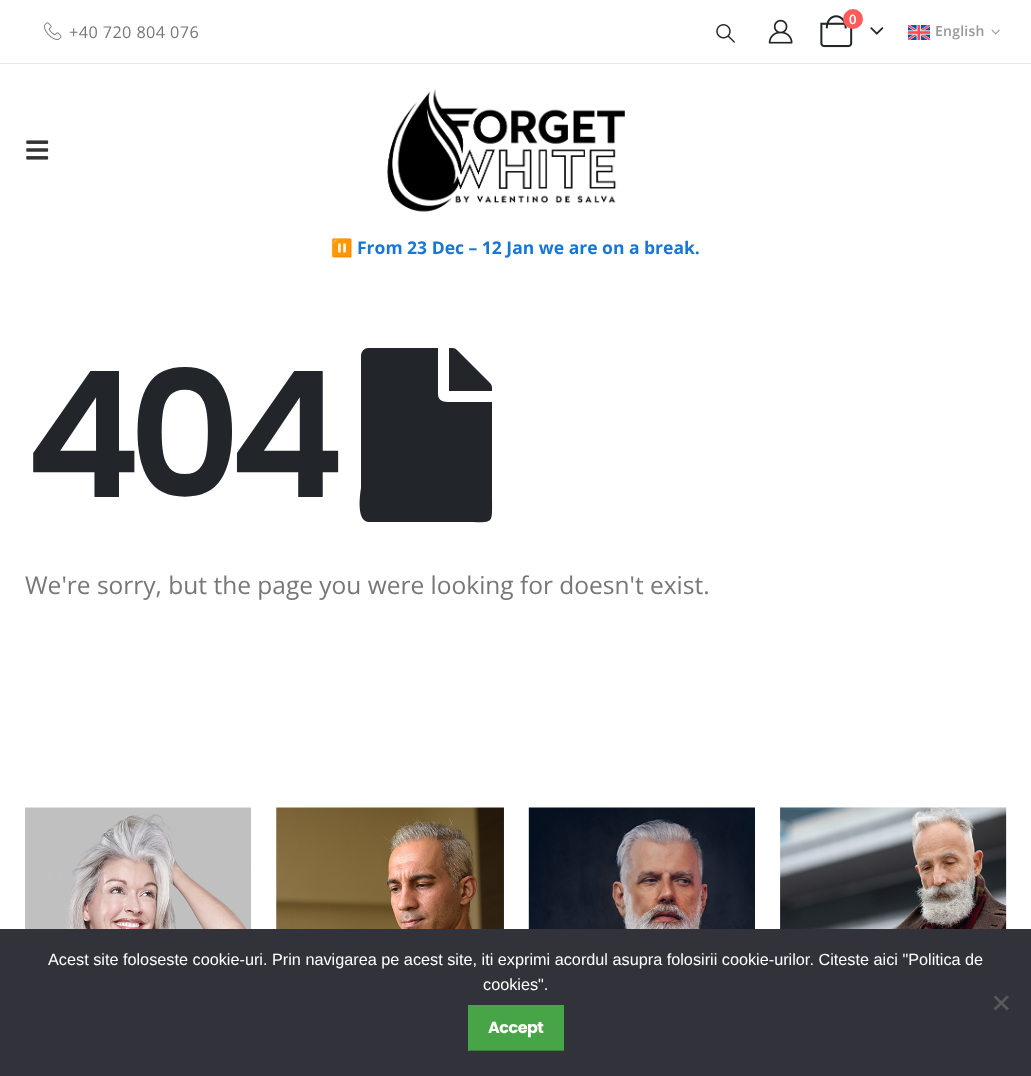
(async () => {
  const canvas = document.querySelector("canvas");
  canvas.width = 1031;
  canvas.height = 1076;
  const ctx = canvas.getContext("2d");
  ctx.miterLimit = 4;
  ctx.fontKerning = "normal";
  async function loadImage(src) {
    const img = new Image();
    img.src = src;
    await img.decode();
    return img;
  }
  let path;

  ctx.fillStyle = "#ffffff";
  ctx.fillRect(0, 0, 1031, 1076);
  ctx.fillStyle = "#e7e7e7";
  ctx.fillRect(0, 63, 1031, 1);
  ctx.drawImage(await loadImage("img/1.png"), 43, 22, 19, 18);
  ctx.drawImage(await loadImage("img/2.png"), 716, 24, 19, 19);
  ctx.drawImage(await loadImage("img/3.png"), 768, 19, 25, 25);
  ctx.drawImage(await loadImage("img/4.png"), 820, 15, 33, 33);
  ctx.fillStyle = "#ff5b5b";
  ctx.beginPath();
  ctx.arc(853, 19, 10, 0, Math.PI * 2);
  ctx.fill();
  ctx.drawImage(await loadImage("img/5.png"), 870, 27, 14, 8);
  ctx.drawImage(await loadImage("img/6.png"), 908, 25, 22, 15);
  ctx.drawImage(await loadImage("img/7.png"), 991, 29, 9, 6);
  ctx.drawImage(await loadImage("img/8.png"), 26, 140, 23, 20);
  ctx.drawImage(await loadImage("img/9.png"), 387, 89, 238, 123);
  ctx.fillStyle = "#222529";
  path = new Path2D("M438 394V348H368C364 348 361 352 361 356V488C361 489 355 520 368 522H465C495 522 492 526 492 496V402H454C447 402 438 403 438 394ZM492 389V391H449V348H451C453 348 455 348 457 350L490 383C492 385 492 387 492 389Z");
  ctx.fill(path);
  ctx.drawImage(await loadImage("img/10.png"), 25, 807, 226, 122);
  ctx.drawImage(await loadImage("img/11.png"), 276, 807, 228, 122);
  ctx.drawImage(await loadImage("img/12.png"), 528, 807, 227, 122);
  ctx.drawImage(await loadImage("img/13.png"), 780, 807, 227, 122);
  ctx.fillStyle = "#32323a";
  ctx.fillRect(0, 929, 1031, 147);
  ctx.fillStyle = "#59595d";
  path = new Path2D("M1007 995.5L1009 997L995.5 1010.5L993.5 1008.5Z");
  ctx.fill(path);
  path = new Path2D("M993.5 997L995.5 995.5L1009 1008.5L1007 1010.5Z");
  ctx.fill(path);
  for (const [x, y, w, h, color] of [
    [469, 1005, 95, 45, "#47a447"],
    [468, 1050, 96, 1, "#388038"],
    [468, 1005, 1, 46, "#47a447"],
  ]) {
    ctx.fillStyle = color;
    ctx.fillRect(x, y, w, h);
  }
  ctx.letterSpacing = "0.4px";
  ctx.font = "16.25px Open Sans";
  ctx.fillStyle = "#777777";
  ctx.fillText("+40 720 804 076", 69, 38);
  ctx.letterSpacing = "0px";
  ctx.font = "600 13px Open Sans";
  ctx.fillStyle = "#ffffff";
  ctx.fillText("0", 849, 24);
  ctx.letterSpacing = "0.25px";
  ctx.font = "600 14px Open Sans";
  ctx.fillStyle = "#999999";
  ctx.fillText("English", 935, 36);
  ctx.letterSpacing = "0px";
  ctx.font = "bold 17.5px Noto Color Emoji";
  ctx.fillStyle = "#1976d2";
  ctx.fillText("⏸️", 331, 254);
  ctx.font = "bold 17.5px Open Sans";
  ctx.fillText("From 23 Dec – 12 Jan we are on a break.", 357, 254);
  ctx.letterSpacing = "-12.5px";
  ctx.font = "600 175px Poppins";
  ctx.fillStyle = "#222529";
  ctx.fillText("404", 25, 497);
  ctx.letterSpacing = "0px";
  ctx.font = "24.5px Open Sans";
  ctx.fillStyle = "#777777";
  ctx.fillText("We're sorry, but the page you were looking for doesn't exist.", 25, 594);
  ctx.font = "16.25px Liberation Sans";
  ctx.fillStyle = "#ffffff";
  ctx.fillText("Acest site foloseste cookie-uri. Prin navigarea pe acest site, iti exprimi acordul asupra folosirii cookie-urilor. Citeste aici \"Politica de", 48, 965);
  ctx.fillText("cookies\".", 483, 990);
  ctx.letterSpacing = "-0.5px";
  ctx.font = "bold 16px Poppins";
  ctx.fillText("Accept", 488, 1033);
})();
